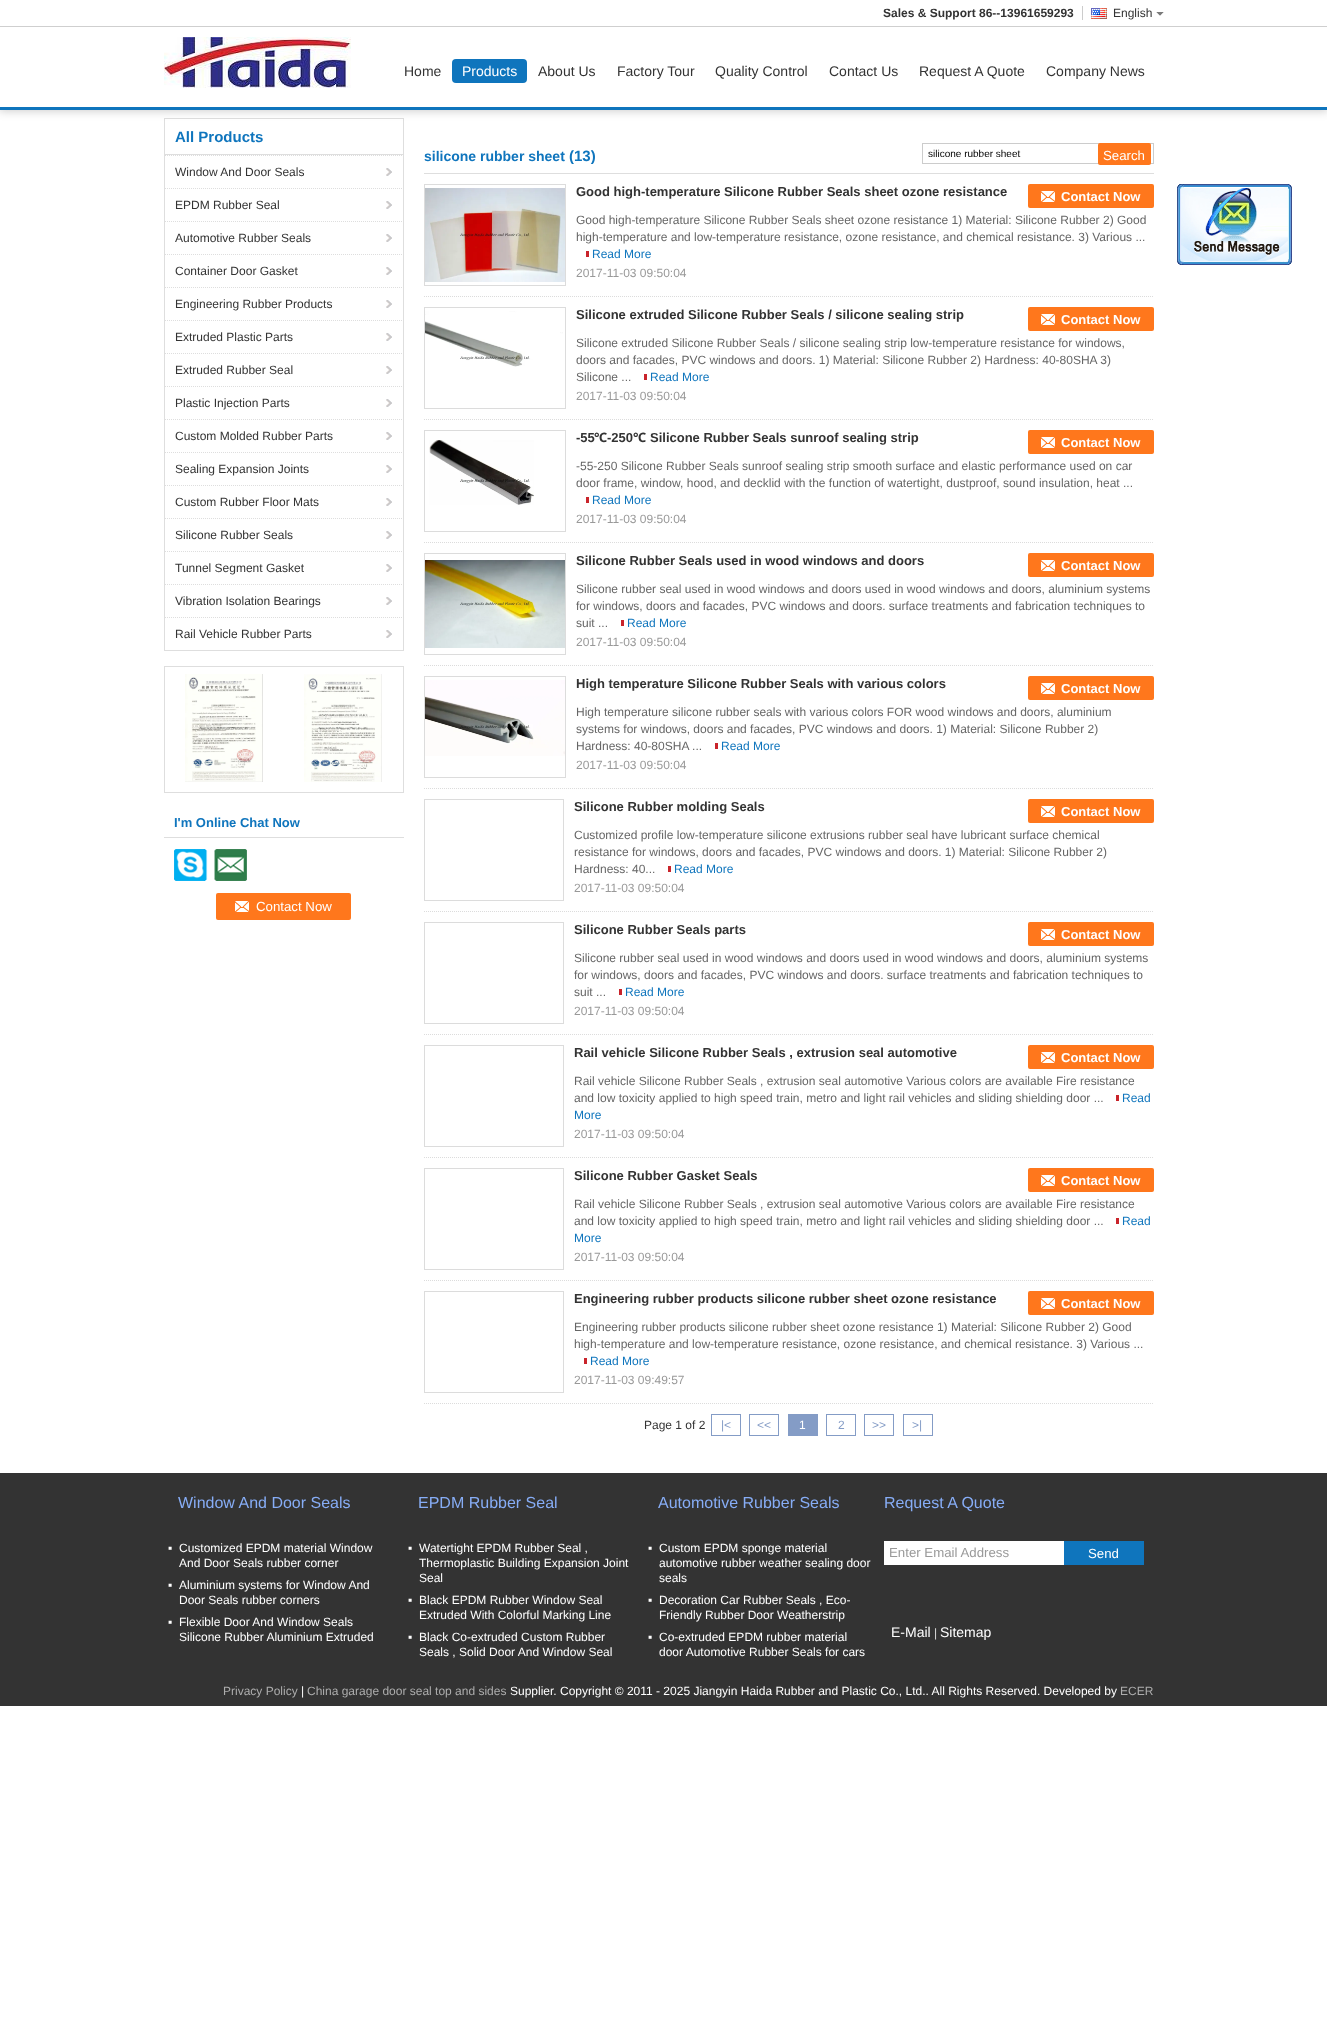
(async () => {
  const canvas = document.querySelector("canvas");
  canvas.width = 1327;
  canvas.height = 2024;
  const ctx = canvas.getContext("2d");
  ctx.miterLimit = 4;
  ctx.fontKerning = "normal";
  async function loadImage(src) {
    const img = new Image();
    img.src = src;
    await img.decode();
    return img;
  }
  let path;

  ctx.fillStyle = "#ffffff";
  ctx.fillRect(0, 0, 1327, 2024);
  ctx.strokeStyle = "#dedede";
  ctx.strokeRect(164.5, 118.5, 239, 532);
  ctx.fillStyle = "rgba(0, 0, 0, 0.2)";
  ctx.filter = "blur(5px)";
  ctx.beginPath();
  ctx.rect(-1, -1, 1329, 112);
  ctx.fill();
  ctx.filter = "none";
  for (const [x, y, w, h, color] of [
    [0, 0, 1327, 107, "#ffffff"],
    [0, 107, 1327, 3, "#0f75bd"],
    [0, 26, 1327, 1, "#cfcfcf"],
  ]) {
    ctx.fillStyle = color;
    ctx.fillRect(x, y, w, h);
  }
  ctx.drawImage(await loadImage("img/1.png"), 1091, 8, 16, 11);
  ctx.fillStyle = "#cccccc";
  ctx.fillRect(1082, 6, 1, 14);
  ctx.drawImage(await loadImage("img/2.png"), 1156, 12, 8, 4);
  ctx.drawImage(await loadImage("img/3.png"), 164, 37, 187, 51);
  ctx.fillStyle = "#0f75bd";
  ctx.beginPath();
  ctx.roundRect(452, 59, 75, 24, 4);
  ctx.fill();
  ctx.fillStyle = "#dedede";
  ctx.fillRect(165, 154, 238, 1);
  path = new Path2D("M165 155.5H403");
  ctx.setLineDash([1, 1]);
  ctx.stroke(path);
  ctx.drawImage(await loadImage("img/4.png"), 386, 168, 6, 8);
  path = new Path2D("M165 188.5H403");
  ctx.stroke(path);
  ctx.drawImage(await loadImage("img/4.png"), 386, 201, 6, 8);
  path = new Path2D("M165 221.5H403");
  ctx.stroke(path);
  ctx.drawImage(await loadImage("img/4.png"), 386, 234, 6, 8);
  path = new Path2D("M165 254.5H403");
  ctx.stroke(path);
  ctx.drawImage(await loadImage("img/4.png"), 386, 267, 6, 8);
  path = new Path2D("M165 287.5H403");
  ctx.stroke(path);
  ctx.drawImage(await loadImage("img/4.png"), 386, 300, 6, 8);
  path = new Path2D("M165 320.5H403");
  ctx.stroke(path);
  ctx.drawImage(await loadImage("img/4.png"), 386, 333, 6, 8);
  path = new Path2D("M165 353.5H403");
  ctx.stroke(path);
  ctx.drawImage(await loadImage("img/4.png"), 386, 366, 6, 8);
  path = new Path2D("M165 386.5H403");
  ctx.stroke(path);
  ctx.drawImage(await loadImage("img/4.png"), 386, 399, 6, 8);
  path = new Path2D("M165 419.5H403");
  ctx.stroke(path);
  ctx.drawImage(await loadImage("img/4.png"), 386, 432, 6, 8);
  path = new Path2D("M165 452.5H403");
  ctx.stroke(path);
  ctx.drawImage(await loadImage("img/4.png"), 386, 465, 6, 8);
  path = new Path2D("M165 485.5H403");
  ctx.stroke(path);
  ctx.drawImage(await loadImage("img/4.png"), 386, 498, 6, 8);
  path = new Path2D("M165 518.5H403");
  ctx.stroke(path);
  ctx.drawImage(await loadImage("img/4.png"), 386, 531, 6, 8);
  path = new Path2D("M165 551.5H403");
  ctx.stroke(path);
  ctx.drawImage(await loadImage("img/4.png"), 386, 564, 6, 8);
  path = new Path2D("M165 584.5H403");
  ctx.stroke(path);
  ctx.drawImage(await loadImage("img/4.png"), 386, 597, 6, 8);
  path = new Path2D("M165 617.5H403");
  ctx.stroke(path);
  ctx.drawImage(await loadImage("img/4.png"), 386, 630, 6, 8);
  ctx.setLineDash([]);
  ctx.strokeRect(164.5, 666.5, 239, 126);
  ctx.drawImage(await loadImage("img/5.png"), 185, 674, 78, 108);
  ctx.drawImage(await loadImage("img/6.png"), 304, 674, 78, 108);
  ctx.fillRect(164, 837, 240, 1);
  ctx.drawImage(await loadImage("img/7.png"), 174, 849, 34, 32);
  ctx.drawImage(await loadImage("img/8.png"), 214, 849, 33, 32);
  ctx.fillStyle = "#ff771c";
  ctx.beginPath();
  ctx.roundRect(216, 893, 135, 27, 2);
  ctx.fill();
  ctx.drawImage(await loadImage("img/9.png"), 235, 901, 14, 11);
  ctx.fillStyle = "#dedede";
  ctx.fillRect(424, 173, 730, 1);
  ctx.strokeStyle = "#cccccc";
  ctx.strokeRect(922.5, 143.5, 231, 20);
  ctx.fillStyle = "#ff771c";
  ctx.beginPath();
  ctx.roundRect(1098, 143, 53, 22, 2);
  ctx.fill();
  path = new Path2D("M424 296.5H1154");
  ctx.strokeStyle = "#dcdcdc";
  ctx.setLineDash([1, 1]);
  ctx.stroke(path);
  ctx.setLineDash([]);
  ctx.strokeRect(424.5, 184.5, 141, 101);
  ctx.drawImage(await loadImage("img/10.png"), 425, 188, 140, 94);
  ctx.beginPath();
  ctx.roundRect(1028, 184, 126, 24, 2);
  ctx.fill();
  ctx.drawImage(await loadImage("img/9.png"), 1041, 191, 14, 11);
  ctx.fillStyle = "#c9242b";
  ctx.fillRect(586, 251, 3, 6);
  path = new Path2D("M424 419.5H1154");
  ctx.setLineDash([1, 1]);
  ctx.stroke(path);
  ctx.setLineDash([]);
  ctx.strokeRect(424.5, 307.5, 141, 101);
  ctx.drawImage(await loadImage("img/11.png"), 425, 311, 138, 56);
  ctx.fillStyle = "#ff771c";
  ctx.beginPath();
  ctx.roundRect(1028, 307, 126, 24, 2);
  ctx.fill();
  ctx.drawImage(await loadImage("img/9.png"), 1041, 314, 14, 11);
  ctx.fillStyle = "#c9242b";
  ctx.fillRect(644, 374, 3, 6);
  path = new Path2D("M424 542.5H1154");
  ctx.setLineDash([1, 1]);
  ctx.stroke(path);
  ctx.setLineDash([]);
  ctx.strokeRect(424.5, 430.5, 141, 101);
  ctx.drawImage(await loadImage("img/12.png"), 429, 440, 105, 65);
  ctx.fillStyle = "#ff771c";
  ctx.beginPath();
  ctx.roundRect(1028, 430, 126, 24, 2);
  ctx.fill();
  ctx.drawImage(await loadImage("img/9.png"), 1041, 437, 14, 11);
  ctx.fillStyle = "#c9242b";
  ctx.fillRect(586, 497, 3, 6);
  path = new Path2D("M424 665.5H1154");
  ctx.setLineDash([1, 1]);
  ctx.stroke(path);
  ctx.setLineDash([]);
  ctx.strokeRect(424.5, 553.5, 141, 101);
  ctx.drawImage(await loadImage("img/13.png"), 425, 560, 140, 88);
  ctx.fillStyle = "#ff771c";
  ctx.beginPath();
  ctx.roundRect(1028, 553, 126, 24, 2);
  ctx.fill();
  ctx.drawImage(await loadImage("img/9.png"), 1041, 560, 14, 11);
  ctx.fillStyle = "#c9242b";
  ctx.fillRect(621, 620, 3, 6);
  path = new Path2D("M424 788.5H1154");
  ctx.setLineDash([1, 1]);
  ctx.stroke(path);
  ctx.setLineDash([]);
  ctx.strokeRect(424.5, 676.5, 141, 101);
  ctx.drawImage(await loadImage("img/14.png"), 425, 680, 140, 76);
  ctx.fillStyle = "#ff771c";
  ctx.beginPath();
  ctx.roundRect(1028, 676, 126, 24, 2);
  ctx.fill();
  ctx.drawImage(await loadImage("img/9.png"), 1041, 683, 14, 11);
  ctx.fillStyle = "#c9242b";
  ctx.fillRect(715, 743, 3, 6);
  path = new Path2D("M424 911.5H1154");
  ctx.setLineDash([1, 1]);
  ctx.stroke(path);
  ctx.setLineDash([]);
  ctx.strokeRect(424.5, 799.5, 139, 101);
  ctx.fillStyle = "#ff771c";
  ctx.beginPath();
  ctx.roundRect(1028, 799, 126, 24, 2);
  ctx.fill();
  ctx.drawImage(await loadImage("img/9.png"), 1041, 806, 14, 11);
  ctx.fillStyle = "#c9242b";
  ctx.fillRect(668, 866, 3, 6);
  path = new Path2D("M424 1034.5H1154");
  ctx.setLineDash([1, 1]);
  ctx.stroke(path);
  ctx.setLineDash([]);
  ctx.strokeRect(424.5, 922.5, 139, 101);
  ctx.fillStyle = "#ff771c";
  ctx.beginPath();
  ctx.roundRect(1028, 922, 126, 24, 2);
  ctx.fill();
  ctx.drawImage(await loadImage("img/9.png"), 1041, 929, 14, 11);
  ctx.fillStyle = "#c9242b";
  ctx.fillRect(619, 989, 3, 6);
  path = new Path2D("M424 1157.5H1154");
  ctx.setLineDash([1, 1]);
  ctx.stroke(path);
  ctx.setLineDash([]);
  ctx.strokeRect(424.5, 1045.5, 139, 101);
  ctx.fillStyle = "#ff771c";
  ctx.beginPath();
  ctx.roundRect(1028, 1045, 126, 24, 2);
  ctx.fill();
  ctx.drawImage(await loadImage("img/9.png"), 1041, 1052, 14, 11);
  ctx.fillStyle = "#c9242b";
  ctx.fillRect(1116, 1095, 3, 6);
  path = new Path2D("M424 1280.5H1154");
  ctx.setLineDash([1, 1]);
  ctx.stroke(path);
  ctx.setLineDash([]);
  ctx.strokeRect(424.5, 1168.5, 139, 101);
  ctx.fillStyle = "#ff771c";
  ctx.beginPath();
  ctx.roundRect(1028, 1168, 126, 24, 2);
  ctx.fill();
  ctx.drawImage(await loadImage("img/9.png"), 1041, 1175, 14, 11);
  ctx.fillStyle = "#c9242b";
  ctx.fillRect(1116, 1218, 3, 6);
  path = new Path2D("M424 1403.5H1154");
  ctx.setLineDash([1, 1]);
  ctx.stroke(path);
  ctx.setLineDash([]);
  ctx.strokeRect(424.5, 1291.5, 139, 101);
  ctx.fillStyle = "#ff771c";
  ctx.beginPath();
  ctx.roundRect(1028, 1291, 126, 24, 2);
  ctx.fill();
  ctx.drawImage(await loadImage("img/9.png"), 1041, 1298, 14, 11);
  ctx.fillStyle = "#c9242b";
  ctx.fillRect(584, 1358, 3, 6);
  ctx.strokeStyle = "#849cc6";
  ctx.strokeRect(711.5, 1414.5, 29, 21);
  ctx.strokeRect(749.5, 1414.5, 29, 21);
  ctx.fillStyle = "#849cc6";
  ctx.fillRect(788, 1414, 30, 22);
  ctx.strokeRect(826.5, 1414.5, 29, 21);
  ctx.strokeRect(864.5, 1414.5, 29, 21);
  ctx.strokeRect(903.5, 1414.5, 29, 21);
  ctx.drawImage(await loadImage("img/15.png"), 1177, 184, 115, 81);
  for (const [x, y, w, h, color] of [
    [0, 1473, 1327, 233, "#333333"],
    [884, 1541, 180, 24, "#ffffff"],
    [1064, 1541, 80, 24, "#0f75bd"],
  ]) {
    ctx.fillStyle = color;
    ctx.fillRect(x, y, w, h);
  }
  ctx.font = "bold 12px Liberation Sans";
  ctx.fillStyle = "#333333";
  ctx.fillText("Sales & Support 86--13961659293", 883, 17);
  ctx.font = "12px Liberation Sans";
  ctx.fillText("English", 1113, 17);
  ctx.font = "14px Liberation Sans";
  ctx.fillText("Home", 404, 76);
  ctx.fillStyle = "#ffffff";
  ctx.fillText("Products", 462, 76);
  ctx.fillStyle = "#333333";
  for (const [text, x, y] of [
    ["About Us", 538, 76],
    ["Factory Tour", 617, 76],
    ["Quality Control", 715, 76],
    ["Contact Us", 829, 76],
    ["Request A Quote", 919, 76],
    ["Company News", 1046, 76],
  ]) {
    ctx.fillText(text, x, y);
  }
  ctx.font = "bold 15px Liberation Sans";
  ctx.fillStyle = "#0f75bd";
  ctx.fillText("All Products", 175, 142);
  ctx.font = "12px Liberation Sans";
  ctx.fillStyle = "#333333";
  for (const [text, x, y] of [
    ["Window And Door Seals", 175, 176],
    ["EPDM Rubber Seal", 175, 209],
    ["Automotive Rubber Seals", 175, 242],
    ["Container Door Gasket", 175, 275],
    ["Engineering Rubber Products", 175, 308],
    ["Extruded Plastic Parts", 175, 341],
    ["Extruded Rubber Seal", 175, 374],
    ["Plastic Injection Parts", 175, 407],
    ["Custom Molded Rubber Parts", 175, 440],
    ["Sealing Expansion Joints", 175, 473],
    ["Custom Rubber Floor Mats", 175, 506],
    ["Silicone Rubber Seals", 175, 539],
    ["Tunnel Segment Gasket", 175, 572],
    ["Vibration Isolation Bearings", 175, 605],
    ["Rail Vehicle Rubber Parts", 175, 638],
  ]) {
    ctx.fillText(text, x, y);
  }
  ctx.font = "bold 13px Liberation Sans";
  ctx.fillStyle = "#0f75bd";
  ctx.fillText("I'm Online Chat Now", 174, 827);
  ctx.font = "13.25px Liberation Sans";
  ctx.fillStyle = "#ffffff";
  ctx.fillText("Contact Now", 256, 911);
  ctx.font = "bold 14px Liberation Sans";
  ctx.fillStyle = "#0f75bd";
  ctx.fillText("silicone rubber sheet", 424, 161);
  ctx.font = "bold 15px Liberation Sans";
  ctx.fillText("(13)", 569, 161);
  ctx.font = "10px Liberation Sans";
  ctx.fillStyle = "#000000";
  ctx.fillText("silicone rubber sheet", 928, 157);
  ctx.font = "13.25px Liberation Sans";
  ctx.fillStyle = "#ffffff";
  ctx.fillText("Search", 1103, 160);
  ctx.font = "bold 13px Liberation Sans";
  ctx.fillStyle = "#333333";
  ctx.fillText("Good high-temperature Silicone Rubber Seals sheet ozone resistance", 576, 196);
  ctx.fillStyle = "#ffffff";
  ctx.fillText("Contact Now", 1061, 201);
  ctx.font = "12px Liberation Sans";
  ctx.fillStyle = "#666666";
  ctx.fillText("Good high-temperature Silicone Rubber Seals sheet ozone resistance 1) Material: Silicone Rubber 2) Good", 576, 224);
  ctx.fillText("high-temperature and low-temperature resistance, ozone resistance, and chemical resistance. 3) Various ...", 576, 241);
  ctx.fillStyle = "#0f75bd";
  ctx.fillText("Read More", 592, 258);
  ctx.fillStyle = "#999999";
  ctx.fillText("2017-11-03 09:50:04", 576, 277);
  ctx.font = "bold 13px Liberation Sans";
  ctx.fillStyle = "#333333";
  ctx.fillText("Silicone extruded Silicone Rubber Seals / silicone sealing strip", 576, 319);
  ctx.fillStyle = "#ffffff";
  ctx.fillText("Contact Now", 1061, 324);
  ctx.font = "12px Liberation Sans";
  ctx.fillStyle = "#666666";
  for (const [text, x, y] of [
    ["Silicone extruded Silicone Rubber Seals / silicone sealing strip low-temperature resistance for windows,", 576, 347],
    ["doors and facades, PVC windows and doors. 1) Material: Silicone Rubber 2) Hardness: 40-80SHA 3)", 576, 364],
    ["Silicone ...", 576, 381],
  ]) {
    ctx.fillText(text, x, y);
  }
  ctx.fillStyle = "#0f75bd";
  ctx.fillText("Read More", 650, 381);
  ctx.fillStyle = "#999999";
  ctx.fillText("2017-11-03 09:50:04", 576, 400);
  ctx.font = "bold 13px Liberation Sans";
  ctx.fillStyle = "#333333";
  ctx.fillText("-55", 576, 442);
  ctx.font = "bold 13px Noto Sans";
  ctx.fillText("℃", 594, 442);
  ctx.font = "bold 13px Liberation Sans";
  ctx.fillText("-250", 607, 442);
  ctx.font = "bold 13px Noto Sans";
  ctx.fillText("℃", 633, 442);
  ctx.font = "bold 13px Liberation Sans";
  ctx.fillText("Silicone Rubber Seals sunroof sealing strip", 650, 442);
  ctx.fillStyle = "#ffffff";
  ctx.fillText("Contact Now", 1061, 447);
  ctx.font = "12px Liberation Sans";
  ctx.fillStyle = "#666666";
  ctx.fillText("-55-250 Silicone Rubber Seals sunroof sealing strip smooth surface and elastic performance used on car", 576, 470);
  ctx.fillText("door frame, window, hood, and decklid with the function of watertight, dustproof, sound insulation, heat ...", 576, 487);
  ctx.fillStyle = "#0f75bd";
  ctx.fillText("Read More", 592, 504);
  ctx.fillStyle = "#999999";
  ctx.fillText("2017-11-03 09:50:04", 576, 523);
  ctx.font = "bold 13px Liberation Sans";
  ctx.fillStyle = "#333333";
  ctx.fillText("Silicone Rubber Seals used in wood windows and doors", 576, 565);
  ctx.fillStyle = "#ffffff";
  ctx.fillText("Contact Now", 1061, 570);
  ctx.font = "12px Liberation Sans";
  ctx.fillStyle = "#666666";
  for (const [text, x, y] of [
    ["Silicone rubber seal used in wood windows and doors used in wood windows and doors, aluminium systems", 576, 593],
    ["for windows, doors and facades, PVC windows and doors. surface treatments and fabrication techniques to", 576, 610],
    ["suit ...", 576, 627],
  ]) {
    ctx.fillText(text, x, y);
  }
  ctx.fillStyle = "#0f75bd";
  ctx.fillText("Read More", 627, 627);
  ctx.fillStyle = "#999999";
  ctx.fillText("2017-11-03 09:50:04", 576, 646);
  ctx.font = "bold 13px Liberation Sans";
  ctx.fillStyle = "#333333";
  ctx.fillText("High temperature Silicone Rubber Seals with various colors", 576, 688);
  ctx.fillStyle = "#ffffff";
  ctx.fillText("Contact Now", 1061, 693);
  ctx.font = "12px Liberation Sans";
  ctx.fillStyle = "#666666";
  for (const [text, x, y] of [
    ["High temperature silicone rubber seals with various colors FOR wood windows and doors, aluminium", 576, 716],
    ["systems for windows, doors and facades, PVC windows and doors. 1) Material: Silicone Rubber 2)", 576, 733],
    ["Hardness: 40-80SHA ...", 576, 750],
  ]) {
    ctx.fillText(text, x, y);
  }
  ctx.fillStyle = "#0f75bd";
  ctx.fillText("Read More", 721, 750);
  ctx.fillStyle = "#999999";
  ctx.fillText("2017-11-03 09:50:04", 576, 769);
  ctx.font = "bold 13px Liberation Sans";
  ctx.fillStyle = "#333333";
  ctx.fillText("Silicone Rubber molding Seals", 574, 811);
  ctx.fillStyle = "#ffffff";
  ctx.fillText("Contact Now", 1061, 816);
  ctx.font = "12px Liberation Sans";
  ctx.fillStyle = "#666666";
  for (const [text, x, y] of [
    ["Customized profile low-temperature silicone extrusions rubber seal have lubricant surface chemical", 574, 839],
    ["resistance for windows, doors and facades, PVC windows and doors. 1) Material: Silicone Rubber 2)", 574, 856],
    ["Hardness: 40...", 574, 873],
  ]) {
    ctx.fillText(text, x, y);
  }
  ctx.fillStyle = "#0f75bd";
  ctx.fillText("Read More", 674, 873);
  ctx.fillStyle = "#999999";
  ctx.fillText("2017-11-03 09:50:04", 574, 892);
  ctx.font = "bold 13px Liberation Sans";
  ctx.fillStyle = "#333333";
  ctx.fillText("Silicone Rubber Seals parts", 574, 934);
  ctx.fillStyle = "#ffffff";
  ctx.fillText("Contact Now", 1061, 939);
  ctx.font = "12px Liberation Sans";
  ctx.fillStyle = "#666666";
  for (const [text, x, y] of [
    ["Silicone rubber seal used in wood windows and doors used in wood windows and doors, aluminium systems", 574, 962],
    ["for windows, doors and facades, PVC windows and doors. surface treatments and fabrication techniques to", 574, 979],
    ["suit ...", 574, 996],
  ]) {
    ctx.fillText(text, x, y);
  }
  ctx.fillStyle = "#0f75bd";
  ctx.fillText("Read More", 625, 996);
  ctx.fillStyle = "#999999";
  ctx.fillText("2017-11-03 09:50:04", 574, 1015);
  ctx.font = "bold 13px Liberation Sans";
  ctx.fillStyle = "#333333";
  ctx.fillText("Rail vehicle Silicone Rubber Seals , extrusion seal automotive", 574, 1057);
  ctx.fillStyle = "#ffffff";
  ctx.fillText("Contact Now", 1061, 1062);
  ctx.font = "12px Liberation Sans";
  ctx.fillStyle = "#666666";
  ctx.fillText("Rail vehicle Silicone Rubber Seals , extrusion seal automotive Various colors are available Fire resistance", 574, 1085);
  ctx.fillText("and low toxicity applied to high speed train, metro and light rail vehicles and sliding shielding door ...", 574, 1102);
  ctx.fillStyle = "#0f75bd";
  ctx.fillText("Read", 1122, 1102);
  ctx.fillText("More", 574, 1119);
  ctx.fillStyle = "#999999";
  ctx.fillText("2017-11-03 09:50:04", 574, 1138);
  ctx.font = "bold 13px Liberation Sans";
  ctx.fillStyle = "#333333";
  ctx.fillText("Silicone Rubber Gasket Seals", 574, 1180);
  ctx.fillStyle = "#ffffff";
  ctx.fillText("Contact Now", 1061, 1185);
  ctx.font = "12px Liberation Sans";
  ctx.fillStyle = "#666666";
  ctx.fillText("Rail vehicle Silicone Rubber Seals , extrusion seal automotive Various colors are available Fire resistance", 574, 1208);
  ctx.fillText("and low toxicity applied to high speed train, metro and light rail vehicles and sliding shielding door ...", 574, 1225);
  ctx.fillStyle = "#0f75bd";
  ctx.fillText("Read", 1122, 1225);
  ctx.fillText("More", 574, 1242);
  ctx.fillStyle = "#999999";
  ctx.fillText("2017-11-03 09:50:04", 574, 1261);
  ctx.font = "bold 13px Liberation Sans";
  ctx.fillStyle = "#333333";
  ctx.fillText("Engineering rubber products silicone rubber sheet ozone resistance", 574, 1303);
  ctx.fillStyle = "#ffffff";
  ctx.fillText("Contact Now", 1061, 1308);
  ctx.font = "12px Liberation Sans";
  ctx.fillStyle = "#666666";
  ctx.fillText("Engineering rubber products silicone rubber sheet ozone resistance 1) Material: Silicone Rubber 2) Good", 574, 1331);
  ctx.fillText("high-temperature and low-temperature resistance, ozone resistance, and chemical resistance. 3) Various ...", 574, 1348);
  ctx.fillStyle = "#0f75bd";
  ctx.fillText("Read More", 590, 1365);
  ctx.fillStyle = "#999999";
  ctx.fillText("2017-11-03 09:49:57", 574, 1384);
  ctx.fillStyle = "#333333";
  ctx.fillText("Page 1 of 2", 644, 1429);
  ctx.fillStyle = "#849cc6";
  ctx.fillText("|<", 721, 1429);
  ctx.fillText("<<", 757, 1429);
  ctx.fillStyle = "#ffffff";
  ctx.fillText("1", 799, 1429);
  ctx.fillStyle = "#849cc6";
  for (const [text, x, y] of [
    ["2", 838, 1429],
    [">>", 872, 1429],
    [">|", 912, 1429],
  ]) {
    ctx.fillText(text, x, y);
  }
  ctx.font = "16px Liberation Sans";
  ctx.fillStyle = "#87adf6";
  ctx.fillText("Window And Door Seals", 178, 1508);
  ctx.font = "12px Liberation Sans";
  ctx.fillStyle = "#ffffff";
  for (const [text, x, y] of [
    ["▪", 168, 1552],
    ["Customized EPDM material Window", 179, 1552],
    ["And Door Seals rubber corner", 179, 1567],
    ["▪", 168, 1589],
    ["Aluminium systems for Window And", 179, 1589],
    ["Door Seals rubber corners", 179, 1604],
    ["▪", 168, 1626],
    ["Flexible Door And Window Seals", 179, 1626],
    ["Silicone Rubber Aluminium Extruded", 179, 1641],
  ]) {
    ctx.fillText(text, x, y);
  }
  ctx.font = "16px Liberation Sans";
  ctx.fillStyle = "#87adf6";
  ctx.fillText("EPDM Rubber Seal", 418, 1508);
  ctx.font = "12px Liberation Sans";
  ctx.fillStyle = "#ffffff";
  for (const [text, x, y] of [
    ["▪", 408, 1552],
    ["Watertight EPDM Rubber Seal ,", 419, 1552],
    ["Thermoplastic Building Expansion Joint", 419, 1567],
    ["Seal", 419, 1582],
    ["▪", 408, 1604],
    ["Black EPDM Rubber Window Seal", 419, 1604],
    ["Extruded With Colorful Marking Line", 419, 1619],
    ["▪", 408, 1641],
    ["Black Co-extruded Custom Rubber", 419, 1641],
    ["Seals , Solid Door And Window Seal", 419, 1656],
  ]) {
    ctx.fillText(text, x, y);
  }
  ctx.font = "16px Liberation Sans";
  ctx.fillStyle = "#87adf6";
  ctx.fillText("Automotive Rubber Seals", 658, 1508);
  ctx.font = "12px Liberation Sans";
  ctx.fillStyle = "#ffffff";
  for (const [text, x, y] of [
    ["▪", 648, 1552],
    ["Custom EPDM sponge material", 659, 1552],
    ["automotive rubber weather sealing door", 659, 1567],
    ["seals", 659, 1582],
    ["▪", 648, 1604],
    ["Decoration Car Rubber Seals , Eco-", 659, 1604],
    ["Friendly Rubber Door Weatherstrip", 659, 1619],
    ["▪", 648, 1641],
    ["Co-extruded EPDM rubber material", 659, 1641],
    ["door Automotive Rubber Seals for cars", 659, 1656],
  ]) {
    ctx.fillText(text, x, y);
  }
  ctx.font = "16px Liberation Sans";
  ctx.fillStyle = "#87adf6";
  ctx.fillText("Request A Quote", 884, 1508);
  ctx.font = "13.25px Liberation Sans";
  ctx.fillStyle = "#999999";
  ctx.fillText("Enter Email Address", 889, 1557);
  ctx.fillStyle = "#ffffff";
  ctx.fillText("Send", 1088, 1558);
  ctx.font = "14px Liberation Sans";
  ctx.fillText("E-Mail", 891, 1637);
  ctx.font = "12px Liberation Sans";
  ctx.fillStyle = "#dddddd";
  ctx.fillText("|", 934, 1637);
  ctx.font = "14px Liberation Sans";
  ctx.fillStyle = "#ffffff";
  ctx.fillText("Sitemap", 940, 1637);
  ctx.font = "12px Liberation Sans";
  ctx.fillStyle = "#adadad";
  ctx.fillText("Privacy Policy", 223, 1695);
  ctx.fillStyle = "#ffffff";
  ctx.fillText("|", 301, 1695);
  ctx.fillStyle = "#adadad";
  ctx.fillText("China garage door seal top and sides", 307, 1695);
  ctx.fillStyle = "#ffffff";
  ctx.fillText("Supplier. Copyright © 2011 - 2025 Jiangyin Haida Rubber and Plastic Co., Ltd.. All Rights Reserved. Developed by", 510, 1695);
  ctx.fillStyle = "#adadad";
  ctx.fillText("ECER", 1120, 1695);
})();
